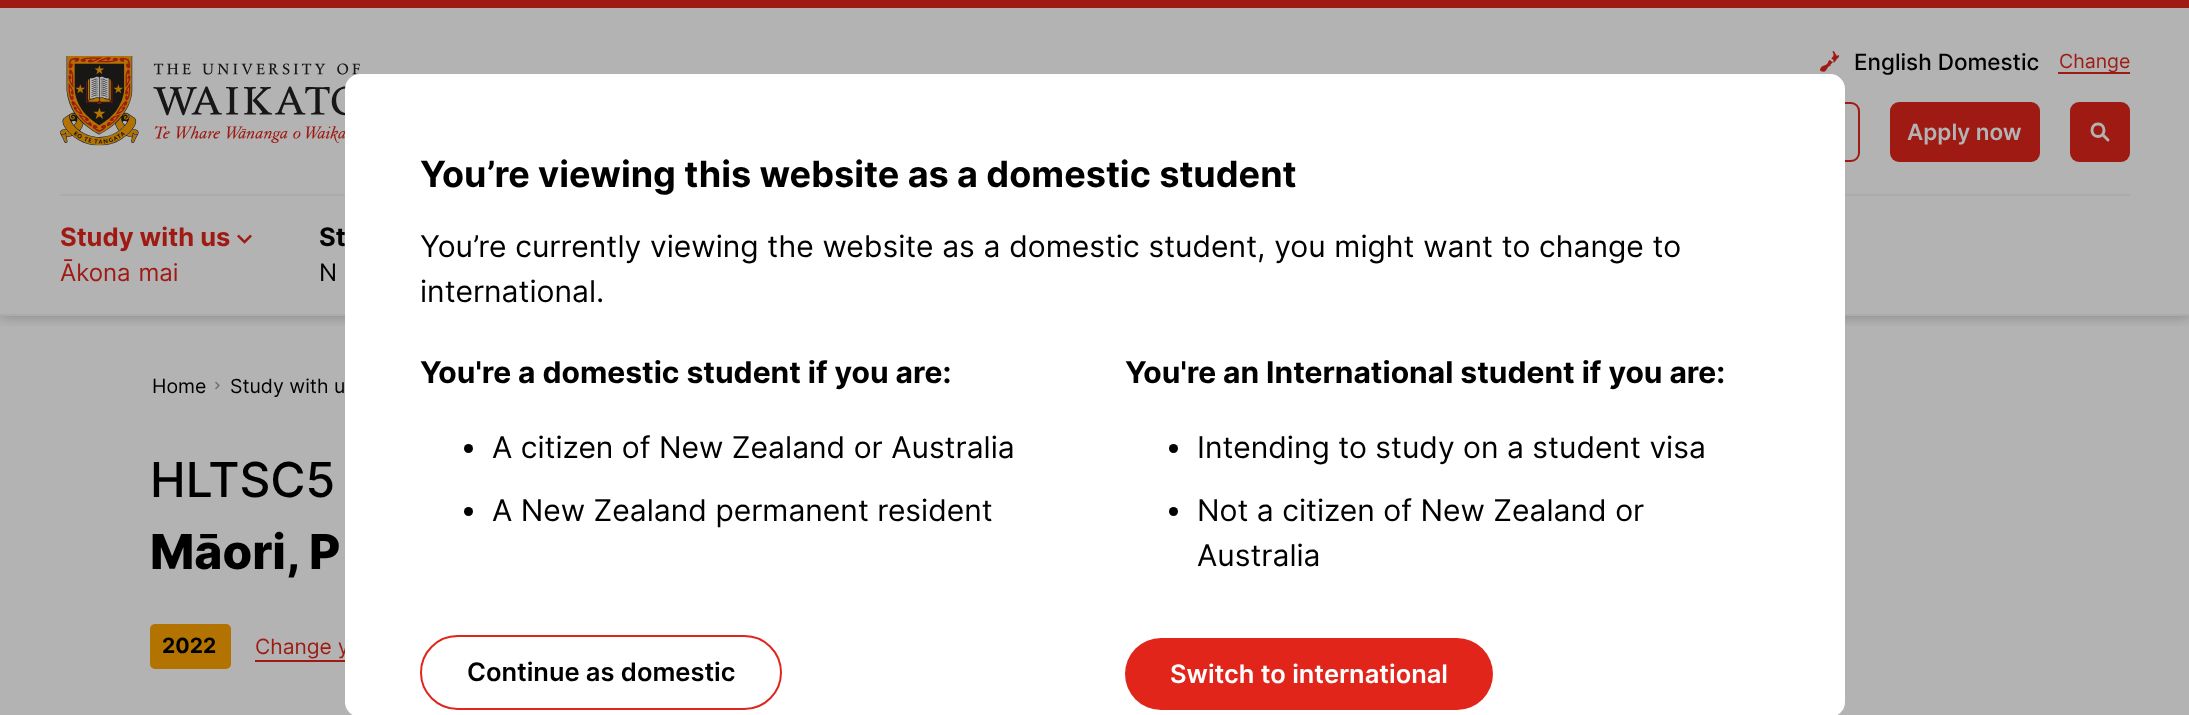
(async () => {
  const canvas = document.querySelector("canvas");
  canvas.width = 2189;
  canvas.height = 715;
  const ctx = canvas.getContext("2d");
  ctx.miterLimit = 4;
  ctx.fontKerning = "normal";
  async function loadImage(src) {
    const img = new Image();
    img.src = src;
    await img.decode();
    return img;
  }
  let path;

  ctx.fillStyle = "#b3b3b3";
  ctx.fillRect(0, 0, 2189, 715);
  ctx.save();
  ctx.beginPath();
  ctx.rect(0, 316, 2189, 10);
  ctx.clip();
  ctx.fillStyle = "rgba(0, 0, 0, 0.3)";
  ctx.filter = "blur(7.5px)";
  ctx.beginPath();
  ctx.rect(0, 0, 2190, 315);
  ctx.fill();
  ctx.filter = "none";
  ctx.restore();
  ctx.fillStyle = "#9e1a13";
  ctx.fillRect(0, 0, 2189, 8);
  ctx.fillStyle = "#ababab";
  ctx.fillRect(0, 314, 2189, 2);
  ctx.drawImage(await loadImage("img/1.png"), 60, 56, 300, 90);
  ctx.drawImage(await loadImage("img/2.png"), 1820, 51, 20, 21);
  ctx.fillStyle = "#9e1a13";
  ctx.fillRect(2058, 72, 72, 2);
  ctx.beginPath();
  ctx.roundRect(1686, 103, 173, 58, 8);
  ctx.strokeStyle = "#9e1a13";
  ctx.lineWidth = 2;
  ctx.stroke();
  ctx.beginPath();
  ctx.roundRect(1890, 102, 150, 60, 9);
  ctx.fill();
  ctx.beginPath();
  ctx.roundRect(2070, 102, 60, 60, 9);
  ctx.fill();
  path = new Path2D("M2098 136.5C2106 136.5 2106 124 2098 124C2090 124 2090 136.5 2098 136.5ZM2108 140L2102.5 134.5");
  ctx.strokeStyle = "#b3b3b3";
  ctx.lineWidth = 2.9;
  ctx.lineCap = "round";
  ctx.lineJoin = "round";
  ctx.stroke(path);
  ctx.fillStyle = "#ababab";
  ctx.fillRect(60, 194, 2070, 2);
  ctx.drawImage(await loadImage("img/3.png"), 237, 234, 15, 10);
  ctx.drawImage(await loadImage("img/4.png"), 215, 381, 5, 9);
  ctx.fillStyle = "#b37300";
  ctx.beginPath();
  ctx.roundRect(150, 624, 81, 45, 5);
  ctx.fill();
  ctx.fillStyle = "#9e1a13";
  ctx.fillRect(255, 660, 90, 2);
  ctx.font = "500 22.5px Inter";
  ctx.fillStyle = "#000000";
  ctx.fillText("English Domestic", 1854, 70);
  ctx.font = "19.5px Inter";
  ctx.fillStyle = "#9e1a13";
  ctx.fillText("Change", 2059, 68);
  ctx.font = "600 22.5px Inter";
  ctx.fillStyle = "#b3b3b3";
  ctx.fillText("Apply now", 1907, 140);
  ctx.font = "bold 25.5px Inter";
  ctx.fillStyle = "#9e1a13";
  ctx.fillText("Study with us", 60, 246);
  ctx.wordSpacing = "1px";
  ctx.font = "24px Inter";
  ctx.fillText("Ākona mai", 60, 281);
  ctx.wordSpacing = "0px";
  ctx.font = "bold 25.5px Inter";
  ctx.fillStyle = "#000000";
  ctx.fillText("St", 319, 246);
  ctx.font = "24px Inter";
  ctx.fillText("N", 319, 281);
  ctx.font = "19.5px Inter";
  ctx.fillText("Home", 152, 393);
  ctx.fillText("Study with u", 230, 393);
  ctx.font = "500 48px Inter";
  ctx.fillText("HLTSC5", 150, 497);
  ctx.font = "800 48px Inter";
  ctx.fillText("Māori, P", 150, 569);
  ctx.font = "bold 21px Inter";
  ctx.fillText("2022", 162, 653);
  ctx.font = "21px Inter";
  ctx.fillStyle = "#9e1a13";
  ctx.fillText("Change y", 255, 654);
  ctx.fillStyle = "#ffffff";
  ctx.beginPath();
  ctx.roundRect(345, 74, 1500, 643, 15);
  ctx.fill();
  ctx.font = "bold 36px Inter";
  ctx.fillStyle = "#000000";
  ctx.fillText("You’re viewing this website as a domestic student", 420, 187);
  ctx.wordSpacing = "0.3px";
  ctx.font = "30px Inter";
  ctx.fillText("You’re currently viewing the website as a domestic student, you might want to change to", 420, 257);
  ctx.wordSpacing = "0px";
  ctx.fillText("international.", 420, 302);
  ctx.font = "bold 30px Inter";
  ctx.fillText("You're a domestic student if you are:", 420, 383);
  ctx.beginPath();
  ctx.arc(468.5, 448.5, 4.5, 0, Math.PI * 2);
  ctx.fill();
  ctx.font = "30px Inter";
  ctx.fillText("A citizen of New Zealand or Australia", 492, 458);
  ctx.beginPath();
  ctx.arc(468.5, 511.5, 4.5, 0, Math.PI * 2);
  ctx.fill();
  ctx.fillText("A New Zealand permanent resident", 492, 521);
  ctx.beginPath();
  ctx.roundRect(421, 636, 360, 73, 36.5);
  ctx.strokeStyle = "#e1251b";
  ctx.lineWidth = 2;
  ctx.lineJoin = "miter";
  ctx.stroke();
  ctx.font = "600 25.5px Inter";
  ctx.fillText("Continue as domestic", 467, 681);
  ctx.font = "bold 30px Inter";
  ctx.fillText("You're an International student if you are:", 1125, 383);
  ctx.beginPath();
  ctx.arc(1173.5, 448.5, 4.5, 0, Math.PI * 2);
  ctx.fill();
  ctx.font = "30px Inter";
  ctx.fillText("Intending to study on a student visa", 1197, 458);
  ctx.beginPath();
  ctx.arc(1173.5, 511.5, 4.5, 0, Math.PI * 2);
  ctx.fill();
  ctx.fillText("Not a citizen of New Zealand or", 1197, 521);
  ctx.fillText("Australia", 1197, 566);
  ctx.fillStyle = "#e1251b";
  ctx.beginPath();
  ctx.roundRect(1125, 638, 368, 72, 36);
  ctx.fill();
  ctx.font = "600 25.5px Inter";
  ctx.fillStyle = "#ffffff";
  ctx.fillText("Switch to international", 1170, 683);
})();
